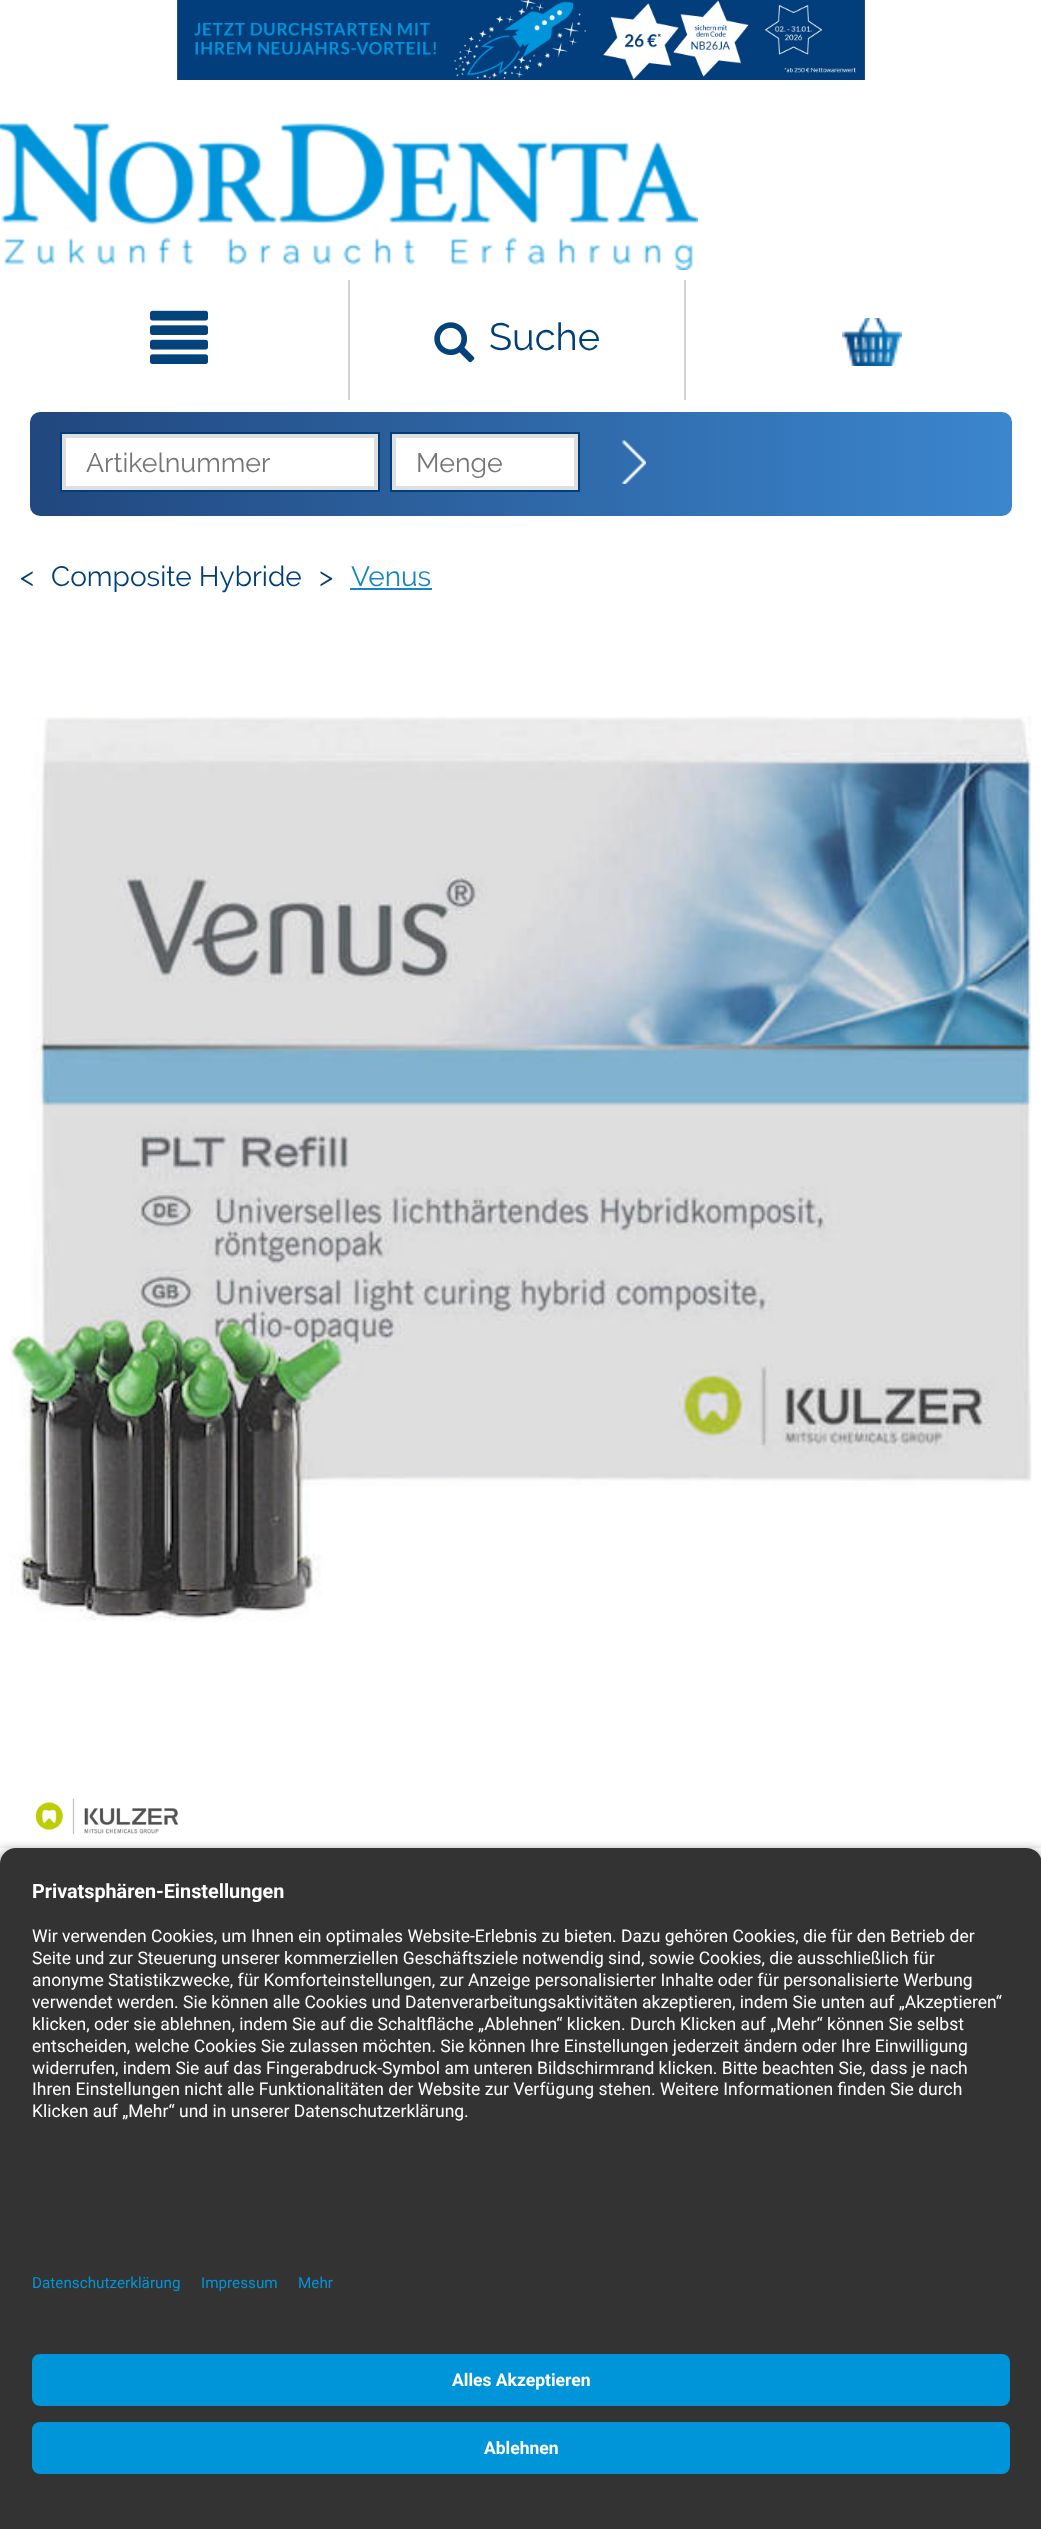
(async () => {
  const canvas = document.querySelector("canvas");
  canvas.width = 1041;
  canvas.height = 2529;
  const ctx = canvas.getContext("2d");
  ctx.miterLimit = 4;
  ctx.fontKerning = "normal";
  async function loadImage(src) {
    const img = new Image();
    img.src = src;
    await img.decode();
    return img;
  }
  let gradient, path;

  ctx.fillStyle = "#ffffff";
  ctx.fillRect(0, 0, 1041, 2529);
  ctx.drawImage(await loadImage("img/1.png"), 177, 0, 688, 80);
  ctx.drawImage(await loadImage("img/2.png"), 0, 123, 698, 147);
  ctx.drawImage(await loadImage("img/3.png"), 150, 310, 58, 54);
  ctx.fillStyle = "#d3d3d3";
  ctx.fillRect(348, 280, 2, 120);
  ctx.drawImage(await loadImage("img/4.png"), 434, 322, 41, 41);
  ctx.fillRect(684, 280, 2, 120);
  ctx.drawImage(await loadImage("img/5.png"), 842, 318, 60, 48);
  gradient = ctx.createLinearGradient(30, 464, 1012, 464);
  gradient.addColorStop(0, "#21477e");
  gradient.addColorStop(1, "#3b86ce");
  ctx.fillStyle = gradient;
  ctx.beginPath();
  ctx.roundRect(30, 412, 982, 104, 10);
  ctx.fill();
  ctx.fillStyle = "#ffffff";
  ctx.beginPath();
  ctx.rect(64, 436, 312, 52);
  ctx.fill();
  ctx.strokeStyle = "#dfdfdf";
  ctx.lineWidth = 4;
  ctx.stroke();
  ctx.strokeStyle = "#003f78";
  ctx.lineWidth = 2;
  ctx.strokeRect(61, 433, 318, 58);
  ctx.beginPath();
  ctx.rect(394, 436, 182, 52);
  ctx.fill();
  ctx.strokeStyle = "#dfdfdf";
  ctx.lineWidth = 4;
  ctx.stroke();
  ctx.strokeStyle = "#003f78";
  ctx.lineWidth = 2;
  ctx.strokeRect(391, 433, 188, 58);
  ctx.drawImage(await loadImage("img/6.png"), 622, 440, 24, 44);
  ctx.fillStyle = "#1685c7";
  ctx.fillRect(350, 588, 82, 2);
  ctx.drawImage(await loadImage("img/7.png"), 10, 716, 1022, 906);
  ctx.drawImage(await loadImage("img/8.png"), 36, 1798, 142, 37);
  ctx.save();
  ctx.beginPath();
  ctx.rect(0, 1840, 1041, 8);
  ctx.clip();
  ctx.fillStyle = "rgba(0, 0, 0, 0.8)";
  ctx.filter = "blur(7px)";
  ctx.beginPath();
  ctx.rect(0, 1854, 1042, 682);
  ctx.fill();
  ctx.filter = "none";
  ctx.restore();
  ctx.save();
  ctx.beginPath();
  ctx.rect(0, 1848, 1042, 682);
  ctx.clip();
  ctx.fillStyle = "rgba(0, 0, 0, 0.8)";
  ctx.filter = "blur(7px)";
  ctx.beginPath();
  ctx.roundRect(0, 1854, 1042, 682, 16);
  ctx.fill();
  ctx.filter = "none";
  ctx.restore();
  ctx.fillStyle = "#333333";
  path = new Path2D("M16 1848H1026C1035 1848 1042 1855 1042 1864V2240H0V1864C0 1855 7 1848 16 1848Z");
  ctx.fill(path);
  ctx.fillRect(0, 2240, 1041, 289);
  ctx.fillStyle = "#0095d9";
  ctx.beginPath();
  ctx.roundRect(32, 2354, 978, 52, 8);
  ctx.fill();
  ctx.beginPath();
  ctx.roundRect(32, 2422, 978, 52, 8);
  ctx.fill();
  ctx.font = "38px Raleway";
  ctx.fillStyle = "#003f78";
  ctx.fillText("Suche", 489, 350);
  ctx.font = "26.75px Raleway";
  ctx.fillStyle = "#757575";
  ctx.fillText("Artikelnummer", 86, 472);
  ctx.fillText("Menge", 416, 472);
  ctx.font = "28px Raleway";
  ctx.fillStyle = "#003f78";
  for (const [text, x, y] of [
    ["<", 20, 586],
    ["Composite Hybride", 51, 586],
    [">", 319, 586],
  ]) {
    ctx.fillText(text, x, y);
  }
  ctx.fillStyle = "#1685c7";
  ctx.fillText("Venus", 351, 586);
  ctx.font = "bold 19.75px Roboto";
  ctx.fillStyle = "#ffffff";
  ctx.fillText("Privatsphären-Einstellungen", 32, 1898);
  ctx.font = "17.5px Roboto";
  for (const [text, x, y] of [
    ["Wir verwenden Cookies, um Ihnen ein optimales Website-Erlebnis zu bieten. Dazu gehören Cookies, die für den Betrieb der", 32, 1942],
    ["Seite und zur Steuerung unserer kommerziellen Geschäftsziele notwendig sind, sowie Cookies, die ausschließlich für", 32, 1964],
    ["anonyme Statistikzwecke, für Komforteinstellungen, zur Anzeige personalisierter Inhalte oder für personalisierte Werbung", 32, 1986],
    ["verwendet werden. Sie können alle Cookies und Datenverarbeitungsaktivitäten akzeptieren, indem Sie unten auf „Akzeptieren“", 32, 2008],
    ["klicken, oder sie ablehnen, indem Sie auf die Schaltfläche „Ablehnen“ klicken. Durch Klicken auf „Mehr“ können Sie selbst", 32, 2030],
    ["entscheiden, welche Cookies Sie zulassen möchten. Sie können Ihre Einstellungen jederzeit ändern oder Ihre Einwilligung", 32, 2052],
    ["widerrufen, indem Sie auf das Fingerabdruck-Symbol am unteren Bildschirmrand klicken. Bitte beachten Sie, dass je nach", 32, 2074],
    ["Ihren Einstellungen nicht alle Funktionalitäten der Website zur Verfügung stehen. Weitere Informationen finden Sie durch", 32, 2095],
    ["Klicken auf „Mehr“ und in unserer Datenschutzerklärung.", 32, 2117],
  ]) {
    ctx.fillText(text, x, y);
  }
  ctx.font = "15.25px Roboto";
  ctx.fillStyle = "#0095d9";
  for (const [text, x, y] of [
    ["Datenschutzerklärung", 32, 2288],
    ["Impressum", 201, 2288],
    ["Mehr", 298, 2288],
  ]) {
    ctx.fillText(text, x, y);
  }
  ctx.font = "bold 17.5px Roboto";
  ctx.fillStyle = "#ffffff";
  ctx.fillText("Alles Akzeptieren", 452, 2386);
  ctx.fillText("Ablehnen", 484, 2454);
})();
